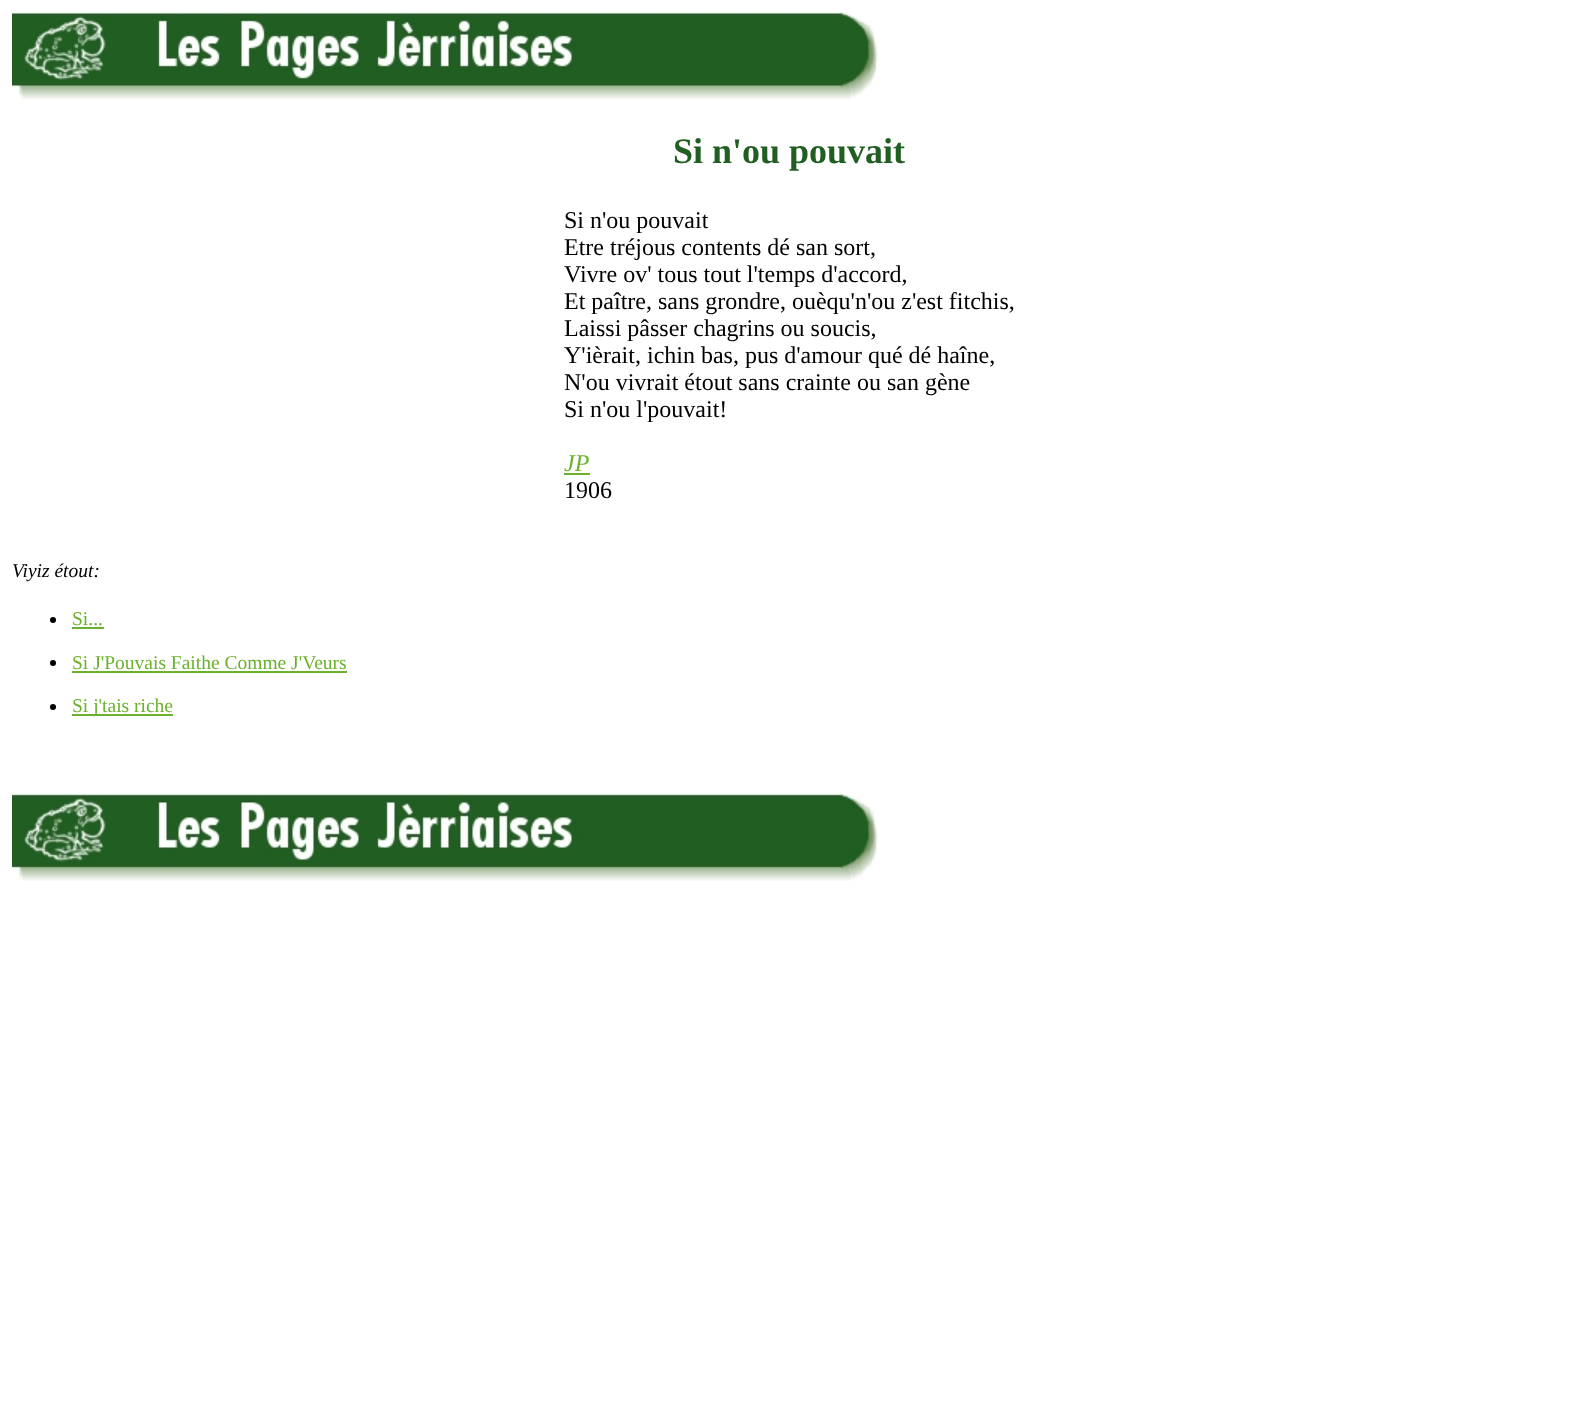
(async () => {
  const canvas = document.querySelector("canvas");
  canvas.width = 1578;
  canvas.height = 1428;
  const ctx = canvas.getContext("2d");
  ctx.miterLimit = 4;
  ctx.fontKerning = "normal";
  async function loadImage(src) {
    const img = new Image();
    img.src = src;
    await img.decode();
    return img;
  }

  ctx.fillStyle = "#ffffff";
  ctx.fillRect(0, 0, 1578, 1428);
  ctx.drawImage(await loadImage("img/1.png"), 12, 12, 866, 88);
  ctx.fillStyle = "#6bb12c";
  ctx.fillRect(564, 473, 26, 2);
  ctx.fillStyle = "#000000";
  ctx.beginPath();
  ctx.arc(53, 620, 3, 0, Math.PI * 2);
  ctx.fill();
  ctx.fillStyle = "#6bb12c";
  ctx.fillRect(72, 627, 32, 2);
  ctx.fillStyle = "#000000";
  ctx.beginPath();
  ctx.arc(53, 663, 3, 0, Math.PI * 2);
  ctx.fill();
  ctx.fillStyle = "#6bb12c";
  ctx.fillRect(72, 671, 275, 2);
  ctx.fillStyle = "#000000";
  ctx.beginPath();
  ctx.arc(53, 707, 3, 0, Math.PI * 2);
  ctx.fill();
  ctx.fillStyle = "#6bb12c";
  ctx.fillRect(72, 714, 101, 2);
  ctx.drawImage(await loadImage("img/2.png"), 12, 793, 866, 88);
  ctx.font = "bold 36px Liberation Serif";
  ctx.fillStyle = "#215e21";
  ctx.fillText("Si n'ou pouvait", 673, 163);
  ctx.font = "24px Liberation Serif";
  ctx.fillStyle = "#000000";
  for (const [text, x, y] of [
    ["Si n'ou pouvait", 564, 228],
    ["Etre tréjous contents dé san sort,", 564, 255],
    ["Vivre ov' tous tout l'temps d'accord,", 564, 282],
    ["Et paître, sans grondre, ouèqu'n'ou z'est fitchis,", 564, 309],
    ["Laissi pâsser chagrins ou soucis,", 564, 336],
    ["Y'ièrait, ichin bas, pus d'amour qué dé haîne,", 564, 363],
    ["N'ou vivrait étout sans crainte ou san gène", 564, 390],
    ["Si n'ou l'pouvait!", 564, 417],
  ]) {
    ctx.fillText(text, x, y);
  }
  ctx.font = "italic 24px Liberation Serif";
  ctx.fillStyle = "#6bb12c";
  ctx.fillText("JP", 564, 471);
  ctx.font = "24px Liberation Serif";
  ctx.fillStyle = "#000000";
  ctx.fillText("1906", 564, 498);
  ctx.font = "italic 19.5px Liberation Serif";
  ctx.fillText("Viyiz étout:", 12, 577);
  ctx.font = "19.5px Liberation Serif";
  ctx.fillStyle = "#6bb12c";
  for (const [text, x, y] of [
    ["Si...", 72, 625],
    ["Si J'Pouvais Faithe Comme J'Veurs", 72, 669],
    ["Si j'tais riche", 72, 712],
  ]) {
    ctx.fillText(text, x, y);
  }
})();
